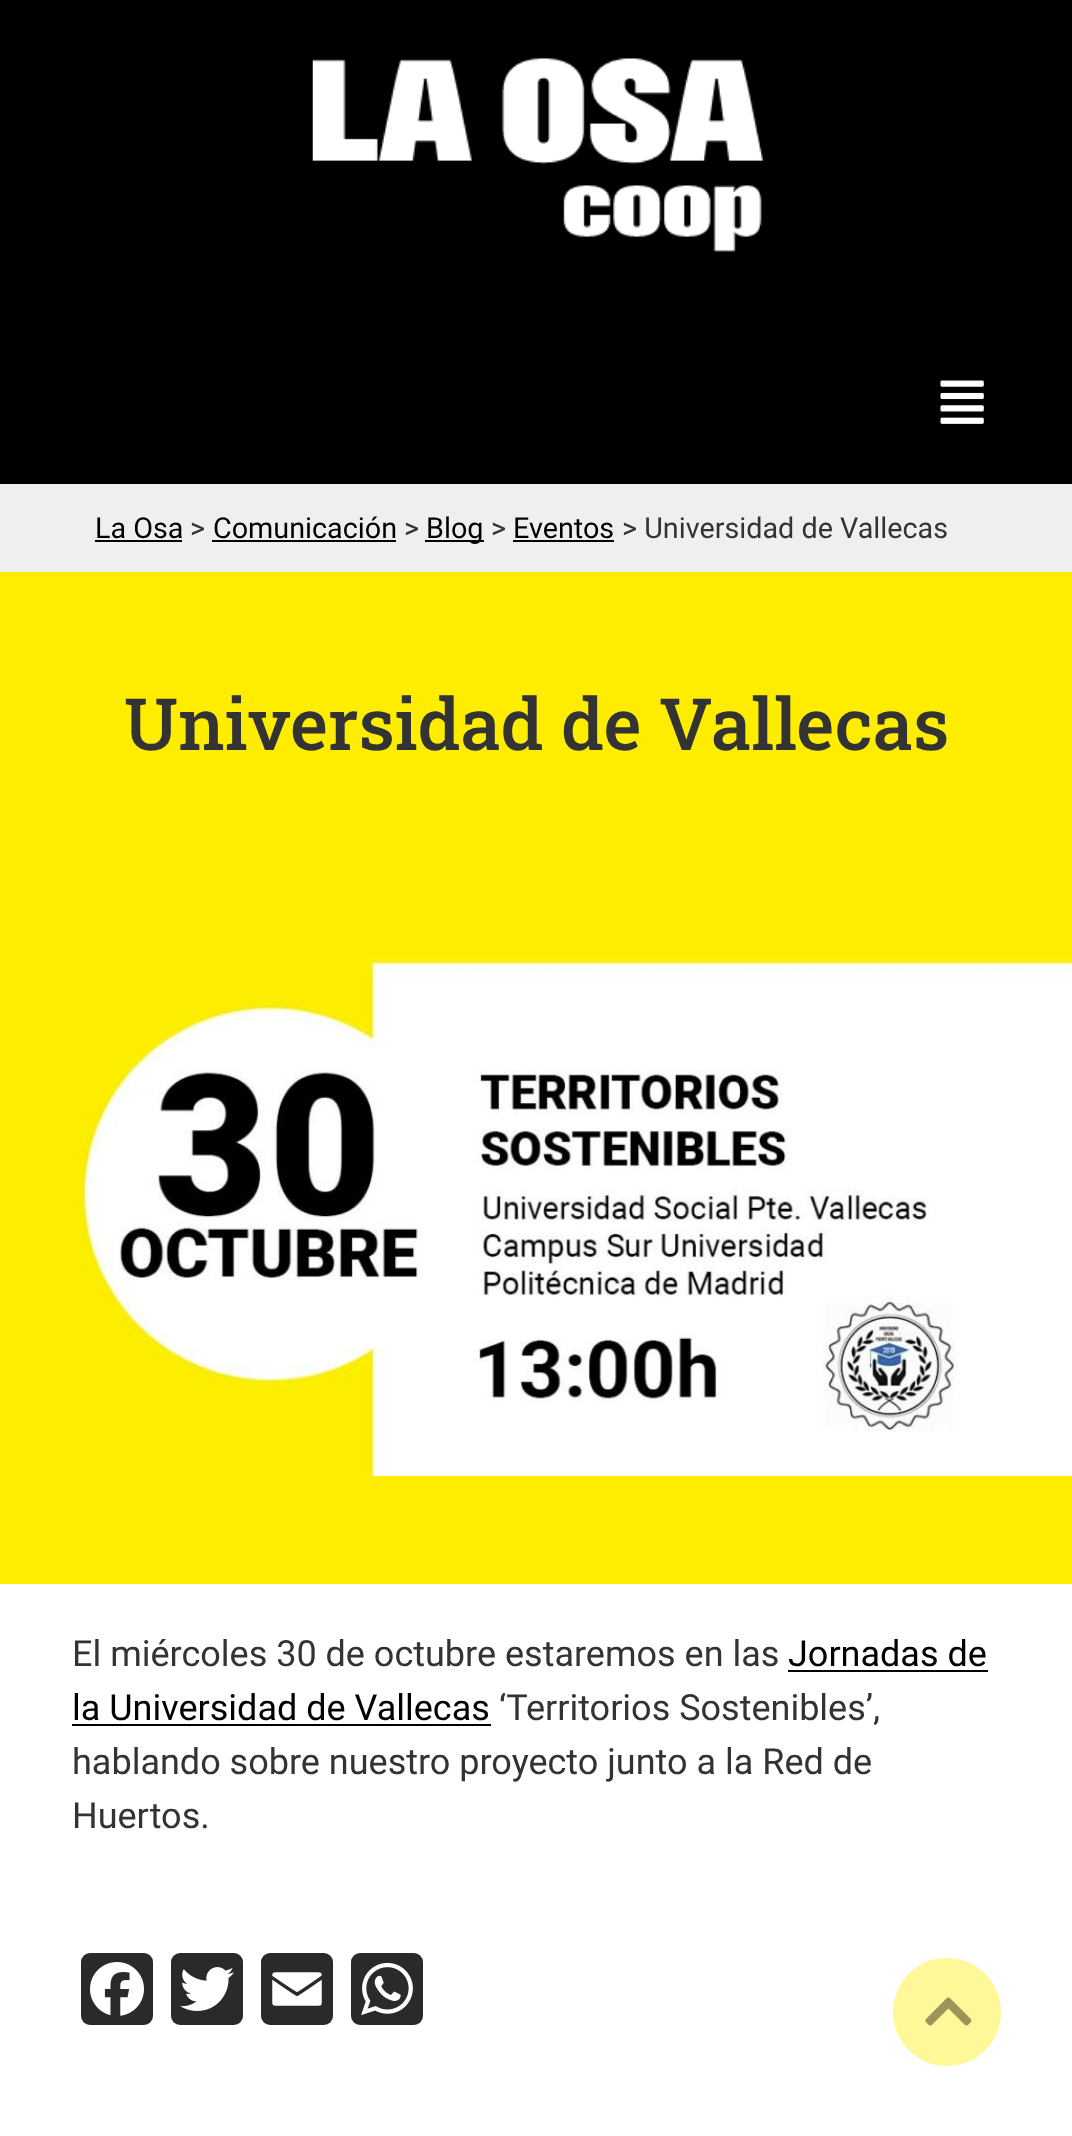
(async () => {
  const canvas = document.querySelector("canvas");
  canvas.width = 1072;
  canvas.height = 2136;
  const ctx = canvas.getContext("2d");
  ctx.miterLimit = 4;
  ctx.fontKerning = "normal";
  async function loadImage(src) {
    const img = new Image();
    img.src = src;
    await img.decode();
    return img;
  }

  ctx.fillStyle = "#ffffff";
  ctx.fillRect(0, 0, 1072, 2136);
  ctx.fillStyle = "#000000";
  ctx.fillRect(0, 0, 1072, 484);
  ctx.drawImage(await loadImage("img/1.png"), 312, 58, 451, 194);
  ctx.drawImage(await loadImage("img/2.png"), 940, 380, 44, 44);
  for (const [x, y, w, h, color] of [
    [0, 484, 1072, 88, "#efefef"],
    [95, 540, 87, 2, "#000000"],
    [212, 540, 184, 2, "#000000"],
    [425, 540, 59, 2, "#000000"],
    [513, 540, 101, 2, "#000000"],
    [0, 572, 1072, 1012, "#ffed00"],
  ]) {
    ctx.fillStyle = color;
    ctx.fillRect(x, y, w, h);
  }
  ctx.drawImage(await loadImage("img/3.png"), 75, 953, 997, 523);
  ctx.fillStyle = "#000000";
  ctx.fillRect(788, 1670, 200, 2);
  ctx.fillRect(72, 1724, 419, 2);
  ctx.fillStyle = "#2a2a2a";
  ctx.beginPath();
  ctx.roundRect(81, 1953, 72, 72, 9);
  ctx.fill();
  ctx.drawImage(await loadImage("img/4.png"), 90, 1962, 54, 54);
  ctx.beginPath();
  ctx.roundRect(171, 1953, 72, 72, 9);
  ctx.fill();
  ctx.drawImage(await loadImage("img/5.png"), 180, 1967, 54, 44);
  ctx.beginPath();
  ctx.roundRect(261, 1953, 72, 72, 9);
  ctx.fill();
  ctx.drawImage(await loadImage("img/6.png"), 272, 1972, 50, 34);
  ctx.beginPath();
  ctx.roundRect(351, 1953, 72, 72, 9);
  ctx.fill();
  ctx.drawImage(await loadImage("img/7.png"), 361, 1962, 52, 53);
  ctx.fillStyle = "#fff899";
  ctx.beginPath();
  ctx.arc(947, 2012, 54, 0, Math.PI * 2);
  ctx.fill();
  ctx.drawImage(await loadImage("img/8.png"), 925, 1997, 47, 29);
  ctx.font = "28.75px Roboto";
  ctx.fillStyle = "#000000";
  ctx.fillText("La Osa", 95, 538);
  ctx.fillStyle = "#333333";
  ctx.fillText(">", 190, 538);
  ctx.fillStyle = "#000000";
  ctx.fillText("Comunicación", 213, 538);
  ctx.fillStyle = "#333333";
  ctx.fillText(">", 404, 538);
  ctx.fillStyle = "#000000";
  ctx.fillText("Blog", 426, 538);
  ctx.fillStyle = "#333333";
  ctx.fillText(">", 491, 538);
  ctx.fillStyle = "#000000";
  ctx.fillText("Eventos", 513, 538);
  ctx.fillStyle = "#333333";
  ctx.fillText("> Universidad de Vallecas", 622, 538);
  ctx.font = "500 72px Roboto Slab";
  ctx.fillText("Universidad de Vallecas", 124, 750);
  ctx.font = "36px Roboto";
  ctx.fillText("El miércoles 30 de octubre estaremos en las", 72, 1666);
  ctx.fillStyle = "#000000";
  ctx.fillText("Jornadas de", 788, 1666);
  ctx.fillText("la Universidad de Vallecas", 72, 1720);
  ctx.fillStyle = "#333333";
  for (const [text, x, y] of [
    ["‘Territorios Sostenibles’,", 499, 1720],
    ["hablando sobre nuestro proyecto junto a la Red de", 72, 1774],
    ["Huertos.", 72, 1828],
  ]) {
    ctx.fillText(text, x, y);
  }
})();
